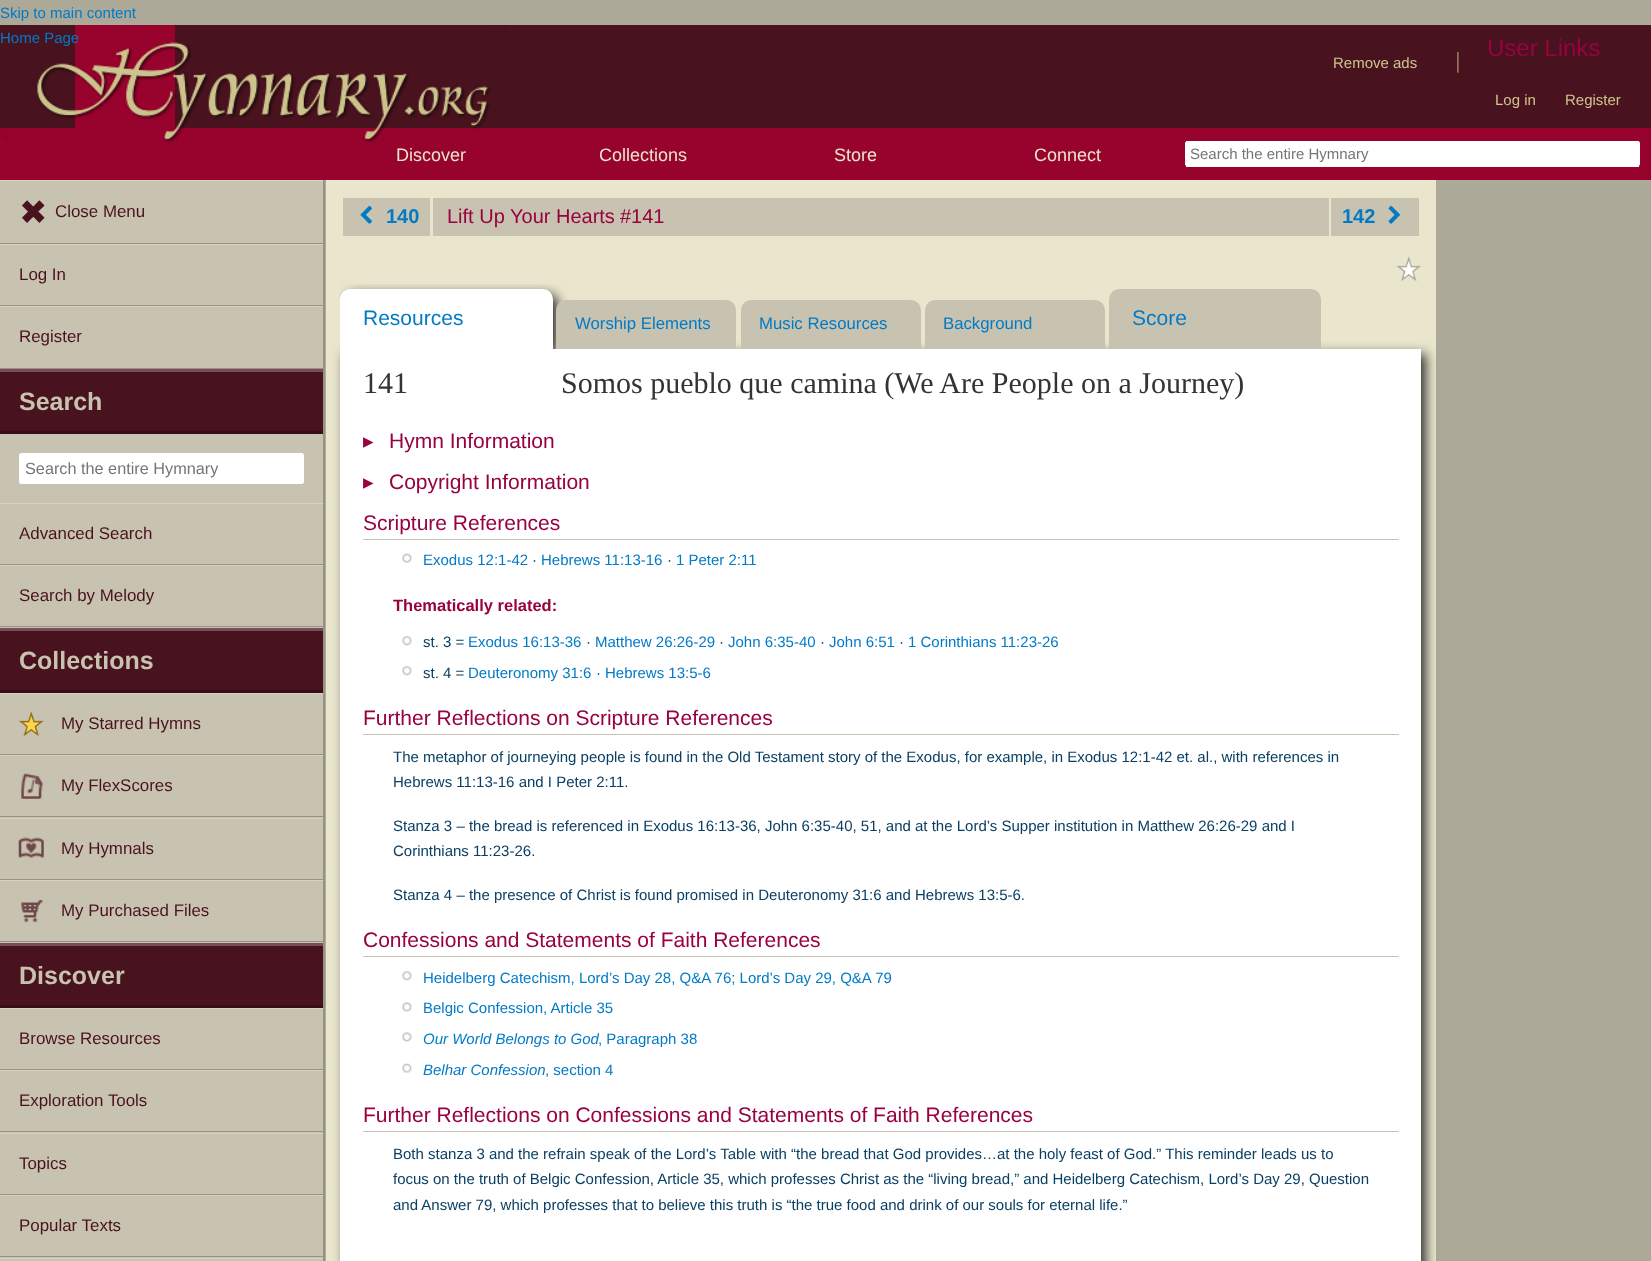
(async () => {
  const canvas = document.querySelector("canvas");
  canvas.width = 1651;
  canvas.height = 1261;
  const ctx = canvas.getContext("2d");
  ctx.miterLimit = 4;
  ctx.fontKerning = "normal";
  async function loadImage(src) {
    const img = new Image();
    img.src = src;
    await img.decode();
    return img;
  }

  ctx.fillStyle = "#ada999";
  ctx.fillRect(0, 0, 1651, 1261);
  for (const [x, y, w, h, color] of [
    [0, 25, 1651, 103, "#49121f"],
    [75, 25, 100, 103, "#98032e"],
    [0, 128, 1651, 52, "#98032e"],
  ]) {
    ctx.fillStyle = color;
    ctx.fillRect(x, y, w, h);
  }
  ctx.drawImage(await loadImage("img/1.png"), 2, 25, 506, 118);
  ctx.fillStyle = "#ffffff";
  ctx.beginPath();
  ctx.roundRect(1185, 141, 455, 25, 2.5);
  ctx.fill();
  for (const [x, y, w, h, color] of [
    [1186, 141, 453, 1, "#ffffff"],
    [1186, 165, 453, 2, "#ffffff"],
    [1185, 143, 1, 22, "#ffffff"],
    [0, 181, 323, 1080, "#c8c3b0"],
    [323, 180, 2, 1081, "#969284"],
    [0, 180, 323, 1, "#d6d2c4"],
    [0, 243, 323, 1, "#969284"],
    [0, 244, 323, 1, "#d6d2c4"],
    [0, 305, 323, 1, "#969284"],
    [0, 306, 323, 1, "#d6d2c4"],
    [0, 368, 323, 1, "#969284"],
    [0, 372, 323, 59, "#49121f"],
    [0, 369, 323, 3, "#774d57"],
    [0, 431, 323, 3, "#370e17"],
  ]) {
    ctx.fillStyle = color;
    ctx.fillRect(x, y, w, h);
  }
  ctx.fillStyle = "#ffffff";
  ctx.beginPath();
  ctx.roundRect(19, 453, 285, 31, 2.5);
  ctx.fill();
  for (const [x, y, w, h, color] of [
    [0, 503, 323, 1, "#d6d2c4"],
    [0, 564, 323, 1, "#969284"],
    [0, 565, 323, 1, "#d6d2c4"],
    [0, 626, 323, 1, "#969284"],
    [0, 631, 323, 59, "#49121f"],
    [0, 628, 323, 3, "#774d57"],
    [0, 690, 323, 3, "#370e17"],
    [0, 693, 323, 1, "#d6d2c4"],
    [0, 754, 323, 1, "#969284"],
  ]) {
    ctx.fillStyle = color;
    ctx.fillRect(x, y, w, h);
  }
  ctx.drawImage(await loadImage("img/2.png"), 18, 711, 26, 26);
  ctx.fillStyle = "#d6d2c4";
  ctx.fillRect(0, 755, 323, 1);
  ctx.fillStyle = "#969284";
  ctx.fillRect(0, 816, 323, 1);
  ctx.drawImage(await loadImage("img/3.png"), 21, 773, 22, 26);
  ctx.fillStyle = "#d6d2c4";
  ctx.fillRect(0, 818, 323, 1);
  ctx.fillStyle = "#969284";
  ctx.fillRect(0, 879, 323, 1);
  ctx.drawImage(await loadImage("img/4.png"), 18, 837, 26, 21);
  ctx.fillStyle = "#d6d2c4";
  ctx.fillRect(0, 880, 323, 1);
  ctx.fillStyle = "#969284";
  ctx.fillRect(0, 941, 323, 1);
  ctx.drawImage(await loadImage("img/5.png"), 21, 899, 22, 24);
  for (const [x, y, w, h, color] of [
    [0, 946, 323, 59, "#49121f"],
    [0, 943, 323, 3, "#774d57"],
    [0, 1005, 323, 3, "#370e17"],
    [0, 1008, 323, 1, "#d6d2c4"],
    [0, 1069, 323, 1, "#969284"],
    [0, 1070, 323, 1, "#d6d2c4"],
    [0, 1131, 323, 1, "#969284"],
    [0, 1133, 323, 1, "#d6d2c4"],
    [0, 1194, 323, 1, "#969284"],
    [0, 1195, 323, 1, "#d6d2c4"],
    [0, 1256, 323, 1, "#969284"],
    [0, 1258, 323, 1, "#d6d2c4"],
    [326, 180, 1110, 1081, "#e9e6cd"],
    [325, 180, 1, 1081, "#afad9a"],
    [343, 198, 87, 38, "#c8c3b0"],
  ]) {
    ctx.fillStyle = color;
    ctx.fillRect(x, y, w, h);
  }
  ctx.drawImage(await loadImage("img/6.png"), 360, 205, 12, 19);
  ctx.fillRect(433, 198, 896, 38);
  ctx.fillRect(1331, 198, 88, 38);
  ctx.drawImage(await loadImage("img/7.png"), 1388, 205, 12, 19);
  ctx.drawImage(await loadImage("img/8.png"), 1396, 256, 25, 26);
  ctx.fillStyle = "#333333";
  ctx.filter = "blur(6px)";
  ctx.beginPath();
  ctx.rect(345, 354, 1081, 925);
  ctx.fill();
  ctx.filter = "none";
  ctx.fillStyle = "#ffffff";
  ctx.fillRect(340, 349, 1081, 912);
  ctx.save();
  ctx.beginPath();
  ctx.rect(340, 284, 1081, 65);
  ctx.clip();
  ctx.fillStyle = "#333333";
  ctx.filter = "blur(6px)";
  ctx.beginPath();
  ctx.roundRect(345, 294, 213, 60, 10);
  ctx.fill();
  ctx.filter = "none";
  ctx.restore();
  ctx.beginPath();
  ctx.roundRect(340, 289, 213, 60, [10, 10, 0, 0]);
  ctx.fill();
  ctx.fillStyle = "#c8c3b0";
  ctx.beginPath();
  ctx.roundRect(556, 300, 180, 49, [10, 10, 0, 0]);
  ctx.fill();
  ctx.beginPath();
  ctx.roundRect(741, 300, 180, 49, [10, 10, 0, 0]);
  ctx.fill();
  ctx.beginPath();
  ctx.roundRect(925, 300, 180, 49, [10, 10, 0, 0]);
  ctx.fill();
  ctx.beginPath();
  ctx.roundRect(1109, 289, 212, 60, [10, 10, 0, 0]);
  ctx.fill();
  ctx.fillRect(363, 539, 1036, 1);
  ctx.drawImage(await loadImage("img/9.png"), 402, 553, 10, 10);
  ctx.drawImage(await loadImage("img/10.png"), 402, 636, 10, 10);
  ctx.drawImage(await loadImage("img/10.png"), 402, 666, 10, 10);
  ctx.fillRect(363, 734, 1036, 1);
  ctx.fillRect(363, 956, 1036, 1);
  ctx.drawImage(await loadImage("img/10.png"), 402, 971, 10, 10);
  ctx.drawImage(await loadImage("img/11.png"), 402, 1002, 10, 10);
  ctx.drawImage(await loadImage("img/11.png"), 402, 1032, 10, 10);
  ctx.drawImage(await loadImage("img/9.png"), 402, 1063, 10, 10);
  ctx.fillRect(363, 1131, 1036, 1);
  ctx.font = "15px Liberation Sans";
  ctx.fillStyle = "#027ac6";
  ctx.fillText("Skip to main content", 0, 18);
  ctx.fillText("Home Page", 0, 43);
  ctx.fillStyle = "#cec48d";
  ctx.fillText("Remove ads", 1333, 68);
  ctx.font = "22px Liberation Sans";
  ctx.fillStyle = "#907159";
  ctx.fillText("|", 1455, 68);
  ctx.font = "24px Liberation Sans";
  ctx.fillStyle = "#98023e";
  ctx.fillText("User Links", 1487, 56);
  ctx.font = "15px Liberation Sans";
  ctx.fillStyle = "#cec48d";
  ctx.fillText("Log in", 1495, 105);
  ctx.fillText("Register", 1565, 105);
  ctx.font = "18px Liberation Sans";
  ctx.fillStyle = "#e9e6cd";
  for (const [text, x, y] of [
    ["Discover", 396, 161],
    ["Collections", 599, 161],
    ["Store", 834, 161],
    ["Connect", 1034, 161],
  ]) {
    ctx.fillText(text, x, y);
  }
  ctx.font = "15px Liberation Sans";
  ctx.fillStyle = "#757575";
  ctx.fillText("Search the entire Hymnary", 1190, 159);
  ctx.font = "34px DejaVu Sans";
  ctx.fillStyle = "#49121f";
  ctx.fillText("✖", 19, 224);
  ctx.font = "16.9px Liberation Sans";
  for (const [text, x, y] of [
    ["Close Menu", 55, 217],
    ["Log In", 19, 280],
    ["Register", 19, 342],
  ]) {
    ctx.fillText(text, x, y);
  }
  ctx.font = "bold 25px Liberation Sans";
  ctx.fillStyle = "#c8c3b0";
  ctx.fillText("Search", 19, 410);
  ctx.font = "16.25px Liberation Sans";
  ctx.fillStyle = "#757575";
  ctx.fillText("Search the entire Hymnary", 25, 474);
  ctx.font = "16.9px Liberation Sans";
  ctx.fillStyle = "#49121f";
  ctx.fillText("Advanced Search", 19, 539);
  ctx.fillText("Search by Melody", 19, 601);
  ctx.font = "bold 25px Liberation Sans";
  ctx.fillStyle = "#c8c3b0";
  ctx.fillText("Collections", 19, 669);
  ctx.font = "16.9px Liberation Sans";
  ctx.fillStyle = "#49121f";
  for (const [text, x, y] of [
    ["My Starred Hymns", 61, 729],
    ["My FlexScores", 61, 791],
    ["My Hymnals", 61, 854],
    ["My Purchased Files", 61, 916],
  ]) {
    ctx.fillText(text, x, y);
  }
  ctx.font = "bold 25px Liberation Sans";
  ctx.fillStyle = "#c8c3b0";
  ctx.fillText("Discover", 19, 984);
  ctx.font = "16.9px Liberation Sans";
  ctx.fillStyle = "#49121f";
  for (const [text, x, y] of [
    ["Browse Resources", 19, 1044],
    ["Exploration Tools", 19, 1106],
    ["Topics", 19, 1169],
    ["Popular Texts", 19, 1231],
  ]) {
    ctx.fillText(text, x, y);
  }
  ctx.font = "bold 20px Liberation Sans";
  ctx.fillStyle = "#027ac6";
  ctx.fillText("140", 386, 223);
  ctx.font = "20px Liberation Sans";
  ctx.fillStyle = "#98023e";
  ctx.fillText("Lift Up Your Hearts", 447, 223);
  ctx.fillText("#141", 620, 223);
  ctx.font = "bold 20px Liberation Sans";
  ctx.fillStyle = "#027ac6";
  ctx.fillText("142", 1342, 223);
  ctx.font = "21px Liberation Sans";
  ctx.fillText("Resources", 363, 325);
  ctx.font = "16.75px Liberation Sans";
  for (const [text, x, y] of [
    ["Worship Elements", 575, 329],
    ["Music Resources", 759, 329],
    ["Background", 943, 329],
  ]) {
    ctx.fillText(text, x, y);
  }
  ctx.font = "21px Liberation Sans";
  ctx.fillText("Score", 1132, 325);
  ctx.font = "30px Liberation Serif";
  ctx.fillStyle = "#333333";
  ctx.fillText("141", 363, 393);
  ctx.fillText("Somos pueblo que camina (We Are People on a Journey)", 561, 393);
  ctx.font = "21px DejaVu Sans";
  ctx.fillStyle = "#98023e";
  ctx.fillText("▸", 363, 448);
  ctx.font = "21px Liberation Sans";
  ctx.fillText("Hymn Information", 389, 448);
  ctx.font = "21px DejaVu Sans";
  ctx.fillText("▸", 363, 489);
  ctx.font = "21px Liberation Sans";
  ctx.fillText("Copyright Information", 389, 489);
  ctx.fillText("Scripture References", 363, 530);
  ctx.font = "15px Liberation Sans";
  ctx.fillStyle = "#027ac6";
  ctx.fillText("Exodus 12:1-42", 423, 565);
  ctx.fillStyle = "#0a3f64";
  ctx.fillText("·", 532, 565);
  ctx.fillStyle = "#027ac6";
  ctx.fillText("Hebrews 11:13-16", 541, 565);
  ctx.fillStyle = "#0a3f64";
  ctx.fillText("·", 667, 565);
  ctx.fillStyle = "#027ac6";
  ctx.fillText("1 Peter 2:11", 676, 565);
  ctx.font = "bold 16.5px Liberation Sans";
  ctx.fillStyle = "#98023e";
  ctx.fillText("Thematically related:", 393, 611);
  ctx.font = "15px Liberation Sans";
  ctx.fillStyle = "#0a3f64";
  ctx.fillText("st. 3 =", 423, 647);
  ctx.fillStyle = "#027ac6";
  ctx.fillText("Exodus 16:13-36", 468, 647);
  ctx.fillStyle = "#0a3f64";
  ctx.fillText("·", 586, 647);
  ctx.fillStyle = "#027ac6";
  ctx.fillText("Matthew 26:26-29", 595, 647);
  ctx.fillStyle = "#0a3f64";
  ctx.fillText("·", 719, 647);
  ctx.fillStyle = "#027ac6";
  ctx.fillText("John 6:35-40", 728, 647);
  ctx.fillStyle = "#0a3f64";
  ctx.fillText("·", 820, 647);
  ctx.fillStyle = "#027ac6";
  ctx.fillText("John 6:51", 829, 647);
  ctx.fillStyle = "#0a3f64";
  ctx.fillText("·", 899, 647);
  ctx.fillStyle = "#027ac6";
  ctx.fillText("1 Corinthians 11:23-26", 908, 647);
  ctx.fillStyle = "#0a3f64";
  ctx.fillText("st. 4 =", 423, 678);
  ctx.fillStyle = "#027ac6";
  ctx.fillText("Deuteronomy 31:6", 468, 678);
  ctx.fillStyle = "#0a3f64";
  ctx.fillText("·", 596, 678);
  ctx.fillStyle = "#027ac6";
  ctx.fillText("Hebrews 13:5-6", 605, 678);
  ctx.font = "21px Liberation Sans";
  ctx.fillStyle = "#98023e";
  ctx.fillText("Further Reflections on Scripture References", 363, 725);
  ctx.font = "15px Liberation Sans";
  ctx.fillStyle = "#0a3f64";
  for (const [text, x, y] of [
    ["The metaphor of journeying people is found in the Old Testament story of the Exodus, for example, in Exodus 12:1-42 et. al., with references in", 393, 762],
    ["Hebrews 11:13-16 and I Peter 2:11.", 393, 787],
    ["Stanza 3 – the bread is referenced in Exodus 16:13-36, John 6:35-40, 51, and at the Lord’s Supper institution in Matthew 26:26-29 and I", 393, 831],
    ["Corinthians 11:23-26.", 393, 856],
    ["Stanza 4 – the presence of Christ is found promised in Deuteronomy 31:6 and Hebrews 13:5-6.", 393, 900],
  ]) {
    ctx.fillText(text, x, y);
  }
  ctx.font = "21px Liberation Sans";
  ctx.fillStyle = "#98023e";
  ctx.fillText("Confessions and Statements of Faith References", 363, 947);
  ctx.font = "15px Liberation Sans";
  ctx.fillStyle = "#027ac6";
  ctx.fillText("Heidelberg Catechism, Lord’s Day 28, Q&A 76; Lord’s Day 29, Q&A 79", 423, 983);
  ctx.fillText("Belgic Confession, Article 35", 423, 1013);
  ctx.font = "italic 15px Liberation Sans";
  ctx.fillText("Our World Belongs to God", 423, 1044);
  ctx.font = "15px Liberation Sans";
  ctx.fillText(", Paragraph 38", 598, 1044);
  ctx.font = "italic 15px Liberation Sans";
  ctx.fillText("Belhar Confession", 423, 1075);
  ctx.font = "15px Liberation Sans";
  ctx.fillText(", section 4", 545, 1075);
  ctx.font = "21px Liberation Sans";
  ctx.fillStyle = "#98023e";
  ctx.fillText("Further Reflections on Confessions and Statements of Faith References", 363, 1122);
  ctx.font = "15px Liberation Sans";
  ctx.fillStyle = "#0a3f64";
  for (const [text, x, y] of [
    ["Both stanza 3 and the refrain speak of the Lord’s Table with “the bread that God provides…at the holy feast of God.” This reminder leads us to", 393, 1159],
    ["focus on the truth of Belgic Confession, Article 35, which professes Christ as the “living bread,” and Heidelberg Catechism, Lord’s Day 29, Question", 393, 1184],
    ["and Answer 79, which professes that to believe this truth is “the true food and drink of our souls for eternal life.”", 393, 1210],
  ]) {
    ctx.fillText(text, x, y);
  }
})();
